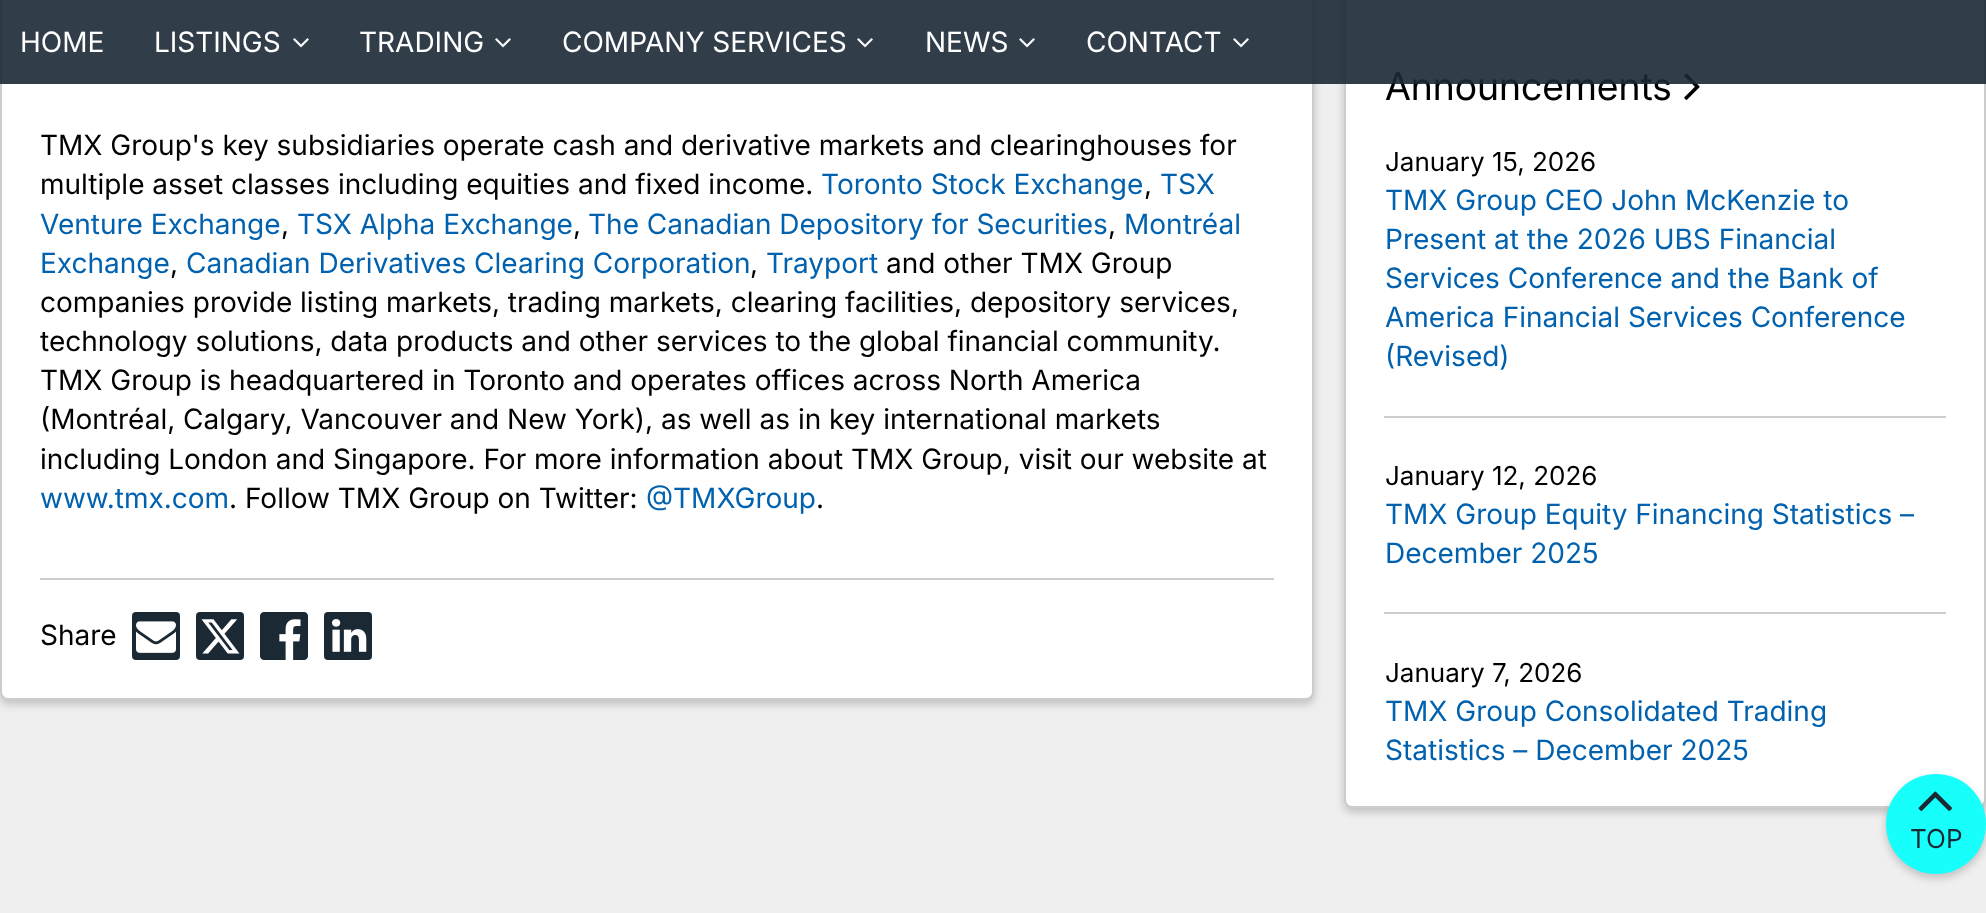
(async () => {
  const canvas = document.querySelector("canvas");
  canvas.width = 1986;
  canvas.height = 913;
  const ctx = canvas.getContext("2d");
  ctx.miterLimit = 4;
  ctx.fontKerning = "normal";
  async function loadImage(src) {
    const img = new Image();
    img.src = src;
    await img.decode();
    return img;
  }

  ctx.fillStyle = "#efefef";
  ctx.fillRect(0, 0, 1986, 913);
  ctx.fillStyle = "rgba(0, 0, 0, 0.2)";
  ctx.filter = "blur(4px)";
  ctx.beginPath();
  ctx.roundRect(0, -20, 1314, 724, 8);
  ctx.fill();
  ctx.filter = "none";
  ctx.fillStyle = "#ffffff";
  ctx.beginPath();
  ctx.roundRect(1, -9, 1312, 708, 7);
  ctx.fill();
  ctx.strokeStyle = "#cccccc";
  ctx.lineWidth = 2;
  ctx.stroke();
  ctx.fillStyle = "#cccccc";
  ctx.fillRect(40, 578, 1234, 2);
  ctx.fillStyle = "#1b2935";
  ctx.beginPath();
  ctx.roundRect(132, 612, 48, 48, 4);
  ctx.fill();
  ctx.drawImage(await loadImage("img/2.png"), 136, 621, 40, 32);
  ctx.beginPath();
  ctx.roundRect(196, 612, 48, 48, 4);
  ctx.fill();
  ctx.drawImage(await loadImage("img/3.png"), 201, 619, 39, 35);
  ctx.drawImage(await loadImage("img/4.png"), 260, 612, 48, 48);
  ctx.beginPath();
  ctx.roundRect(324, 612, 48, 48, 4);
  ctx.fill();
  ctx.drawImage(await loadImage("img/5.png"), 332, 619, 35, 33);
  ctx.fillStyle = "rgba(0, 0, 0, 0.2)";
  ctx.filter = "blur(4px)";
  ctx.beginPath();
  ctx.roundRect(1344, -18, 642, 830, 8);
  ctx.fill();
  ctx.filter = "none";
  ctx.fillStyle = "#ffffff";
  ctx.beginPath();
  ctx.roundRect(1345, -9, 640, 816, 7);
  ctx.fill();
  ctx.stroke();
  ctx.drawImage(await loadImage("img/6.png"), 1684, 73, 16, 27);
  ctx.fillStyle = "#cccccc";
  ctx.fillRect(1384, 416, 562, 2);
  ctx.fillRect(1384, 612, 562, 2);
  ctx.fillStyle = "rgba(0, 0, 0, 0.2)";
  ctx.filter = "blur(4px)";
  ctx.beginPath();
  ctx.roundRect(1886, 778, 100, 100, 50);
  ctx.fill();
  ctx.filter = "none";
  ctx.fillStyle = "#16fffb";
  ctx.beginPath();
  ctx.arc(1936, 824, 50, 0, Math.PI * 2);
  ctx.fill();
  ctx.drawImage(await loadImage("img/7.png"), 1918, 791, 34, 20);
  ctx.font = "28px 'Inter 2'";
  ctx.fillStyle = "#000000";
  ctx.fillText("TMX Group's key subsidiaries operate cash and derivative markets and clearinghouses for", 40, 155);
  ctx.fillText("multiple asset classes including equities and fixed income.", 40, 194);
  ctx.fillStyle = "#0061af";
  ctx.fillText("Toronto Stock Exchange", 821, 194);
  ctx.fillStyle = "#000000";
  ctx.fillText(",", 1144, 194);
  ctx.fillStyle = "#0061af";
  ctx.fillText("TSX", 1160, 194);
  ctx.fillText("Venture Exchange", 40, 234);
  ctx.fillStyle = "#000000";
  ctx.fillText(",", 281, 234);
  ctx.fillStyle = "#0061af";
  ctx.fillText("TSX Alpha Exchange", 297, 234);
  ctx.fillStyle = "#000000";
  ctx.fillText(",", 573, 234);
  ctx.fillStyle = "#0061af";
  ctx.fillText("The Canadian Depository for Securities", 588, 234);
  ctx.fillStyle = "#000000";
  ctx.fillText(",", 1108, 234);
  ctx.fillStyle = "#0061af";
  ctx.fillText("Montréal", 1124, 234);
  ctx.fillText("Exchange", 40, 273);
  ctx.fillStyle = "#000000";
  ctx.fillText(",", 170, 273);
  ctx.fillStyle = "#0061af";
  ctx.fillText("Canadian Derivatives Clearing Corporation", 186, 273);
  ctx.fillStyle = "#000000";
  ctx.fillText(",", 750, 273);
  ctx.fillStyle = "#0061af";
  ctx.fillText("Trayport", 766, 273);
  ctx.fillStyle = "#000000";
  for (const [text, x, y] of [
    ["and other TMX Group", 886, 273],
    ["companies provide listing markets, trading markets, clearing facilities, depository services,", 40, 312],
    ["technology solutions, data products and other services to the global financial community.", 40, 351],
    ["TMX Group is headquartered in Toronto and operates offices across North America", 40, 390],
    ["(Montréal, Calgary, Vancouver and New York), as well as in key international markets", 40, 429],
    ["including London and Singapore. For more information about TMX Group, visit our website at", 40, 469],
  ]) {
    ctx.fillText(text, x, y);
  }
  ctx.fillStyle = "#0061af";
  ctx.fillText("www.tmx.com", 40, 508);
  ctx.fillStyle = "#000000";
  ctx.fillText(". Follow TMX Group on Twitter:", 229, 508);
  ctx.fillStyle = "#0061af";
  ctx.fillText("@TMXGroup", 646, 508);
  ctx.fillStyle = "#000000";
  ctx.fillText(".", 816, 508);
  ctx.fillText("Share", 40, 645);
  ctx.font = "38px Inter";
  ctx.fillText("Announcements", 1385, 100);
  ctx.fillStyle = "rgba(27, 41, 53, 0.9)";
  ctx.fillRect(0, 0, 1986, 84);
  ctx.drawImage(await loadImage("img/1.png"), 1233, 38, 16, 10);
  ctx.font = "28px 'Inter 2'";
  ctx.fillStyle = "#ffffff";
  ctx.fillText("CONTACT", 1086, 52);
  ctx.drawImage(await loadImage("img/1.png"), 1019, 38, 16, 10);
  ctx.fillText("NEWS", 925, 52);
  ctx.drawImage(await loadImage("img/1.png"), 857, 38, 16, 10);
  ctx.fillText("COMPANY SERVICES", 562, 52);
  ctx.drawImage(await loadImage("img/1.png"), 495, 38, 16, 10);
  ctx.fillText("TRADING", 359, 52);
  ctx.drawImage(await loadImage("img/1.png"), 293, 38, 16, 10);
  ctx.fillText("LISTINGS", 154, 52);
  ctx.fillText("HOME", 20, 52);
  ctx.font = "26px 'Inter 2'";
  ctx.fillStyle = "#000000";
  ctx.fillText("January 15, 2026", 1385, 171);
  ctx.font = "28px 'Inter 2'";
  ctx.fillStyle = "#0061af";
  for (const [text, x, y] of [
    ["TMX Group CEO John McKenzie to", 1385, 210],
    ["Present at the 2026 UBS Financial", 1385, 249],
    ["Services Conference and the Bank of", 1385, 288],
    ["America Financial Services Conference", 1385, 327],
    ["(Revised)", 1385, 366],
  ]) {
    ctx.fillText(text, x, y);
  }
  ctx.font = "26px 'Inter 2'";
  ctx.fillStyle = "#000000";
  ctx.fillText("January 12, 2026", 1385, 485);
  ctx.font = "28px 'Inter 2'";
  ctx.fillStyle = "#0061af";
  ctx.fillText("TMX Group Equity Financing Statistics –", 1385, 524);
  ctx.fillText("December 2025", 1385, 563);
  ctx.font = "26px 'Inter 2'";
  ctx.fillStyle = "#000000";
  ctx.fillText("January 7, 2026", 1385, 682);
  ctx.font = "28px 'Inter 2'";
  ctx.fillStyle = "#0061af";
  ctx.fillText("TMX Group Consolidated Trading", 1385, 721);
  ctx.fillText("Statistics – December 2025", 1385, 760);
  ctx.font = "26px 'Inter 2'";
  ctx.fillStyle = "#1b2935";
  ctx.fillText("TOP", 1910, 848);
})();
